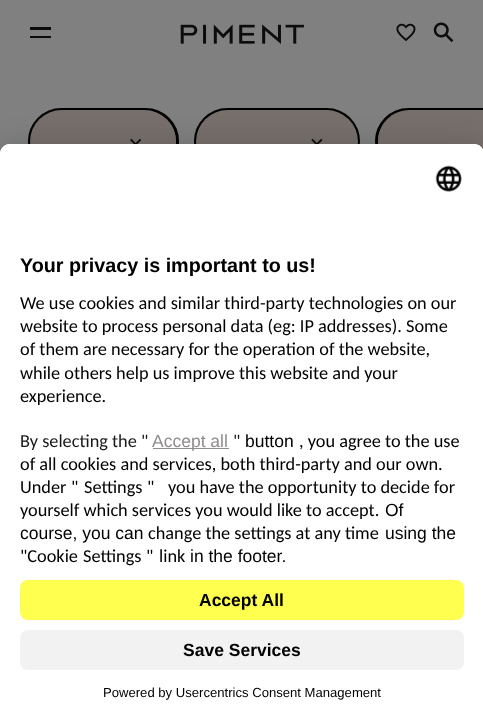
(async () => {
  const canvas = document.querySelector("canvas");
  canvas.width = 483;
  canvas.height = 720;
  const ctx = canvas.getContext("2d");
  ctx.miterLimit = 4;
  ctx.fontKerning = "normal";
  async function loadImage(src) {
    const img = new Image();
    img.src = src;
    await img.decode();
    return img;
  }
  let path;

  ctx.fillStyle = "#808080";
  ctx.fillRect(0, 0, 483, 720);
  ctx.fillStyle = "#0c0c0c";
  ctx.fillRect(30, 27, 21, 3);
  ctx.fillRect(30, 36, 21, 2);
  ctx.drawImage(await loadImage("img/1.png"), 180, 24, 124, 20);
  ctx.drawImage(await loadImage("img/2.png"), 396, 23, 20, 19);
  ctx.drawImage(await loadImage("img/3.png"), 433, 22, 21, 21);
  ctx.beginPath();
  ctx.roundRect(29.5, 109.5, 148, 64, 32);
  ctx.strokeStyle = "#000000";
  ctx.lineWidth = 3;
  ctx.stroke();
  ctx.fillStyle = "#766f6b";
  ctx.beginPath();
  ctx.roundRect(30, 110, 146, 63, 31.5);
  ctx.fill();
  ctx.drawImage(await loadImage("img/4.png"), 130, 138, 12, 6);
  ctx.beginPath();
  ctx.roundRect(195.5, 109.5, 163, 64, 32);
  ctx.stroke();
  ctx.beginPath();
  ctx.roundRect(196, 110, 162, 63, 31.5);
  ctx.fill();
  ctx.drawImage(await loadImage("img/5.png"), 311, 138, 12, 6);
  ctx.beginPath();
  ctx.roundRect(376.5, 109.5, 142, 64, 32);
  ctx.stroke();
  path = new Path2D("M409.5 110H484V173H409.5C392 173 378 159 378 141.5C378 124 392 110 409.5 110Z");
  ctx.fill(path);
  ctx.fillStyle = "rgba(0, 0, 0, 0.22)";
  ctx.filter = "blur(16px)";
  ctx.beginPath();
  ctx.roundRect(0, 150, 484, 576, 10);
  ctx.fill();
  ctx.filter = "none";
  ctx.fillStyle = "#ffffff";
  path = new Path2D("M10 144H474C479.5 144 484 148.5 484 154V720H0V154C0 148.5 4.5 144 10 144Z");
  ctx.fill(path);
  path = new Path2D("M10 144H474C479.5 144 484 148.5 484 154V565H0V154C0 148.5 4.5 144 10 144Z");
  ctx.fill(path);
  ctx.drawImage(await loadImage("img/6.png"), 435, 165, 27, 27);
  ctx.fillStyle = "#918c8c";
  ctx.fillRect(153, 448, 76, 1);
  ctx.fillStyle = "#ffff4f";
  ctx.beginPath();
  ctx.roundRect(20, 580, 444, 40, 8);
  ctx.fill();
  ctx.fillStyle = "#f2f2f2";
  ctx.beginPath();
  ctx.roundRect(20, 630, 444, 40, 8);
  ctx.fill();
  ctx.font = "bold 19.75px Liberation Sans";
  ctx.fillStyle = "#000000";
  ctx.fillText("Your privacy is important to us!", 20, 272);
  ctx.font = "18.3px Carlito";
  for (const [text, x, y] of [
    ["We use cookies and similar third-party technologies on our", 20, 309],
    ["website to process personal data (eg: IP addresses). Some", 20, 332],
    ["of them are necessary for the operation of the website,", 20, 355],
    ["while others help us improve this website and your", 20, 379],
    ["experience.", 20, 402],
  ]) {
    ctx.fillText(text, x, y);
  }
  ctx.fillStyle = "#191919";
  ctx.fillText("By selecting the \"", 20, 447);
  ctx.font = "17.5px Liberation Sans";
  ctx.fillStyle = "#918c8c";
  ctx.fillText("Accept all", 152, 447);
  ctx.font = "18.3px Carlito";
  ctx.fillStyle = "#191919";
  ctx.fillText("\"", 233, 447);
  ctx.font = "17.5px Liberation Sans";
  ctx.fillStyle = "#000000";
  ctx.fillText("button", 245, 447);
  ctx.font = "18.3px Carlito";
  for (const [text, x, y] of [
    [", you agree to the use", 299, 447],
    ["of all cookies and services, both third-party and our own.", 20, 470],
    ["Under", 20, 493],
    ["\"", 71, 493],
    ["Settings", 84, 493],
    ["\"", 147, 493],
    ["you have the opportunity to decide for", 168, 493],
    ["yourself which services you would like to accept.", 20, 516],
  ]) {
    ctx.fillText(text, x, y);
  }
  ctx.font = "17.5px Liberation Sans";
  ctx.fillText("Of", 385, 516);
  ctx.fillText("course, you can", 20, 539);
  ctx.font = "18.3px Carlito";
  ctx.fillText("change the settings at any time", 148, 539);
  ctx.font = "17.5px Liberation Sans";
  ctx.fillText("using the", 385, 539);
  ctx.font = "18.3px Carlito";
  for (const [text, x, y] of [
    ["\"Cookie", 20, 562],
    ["Settings", 83, 562],
    ["\"", 146, 562],
    ["link", 159, 562],
  ]) {
    ctx.fillText(text, x, y);
  }
  ctx.font = "17.5px Liberation Sans";
  ctx.fillText("in the footer.", 190, 562);
  ctx.font = "bold 17.5px Liberation Sans";
  ctx.fillText("Accept All", 199, 606);
  ctx.fillText("Save Services", 183, 656);
  ctx.font = "13.1px Liberation Sans";
  ctx.fillText("Powered by Usercentrics Consent Management", 103, 697);
})();
